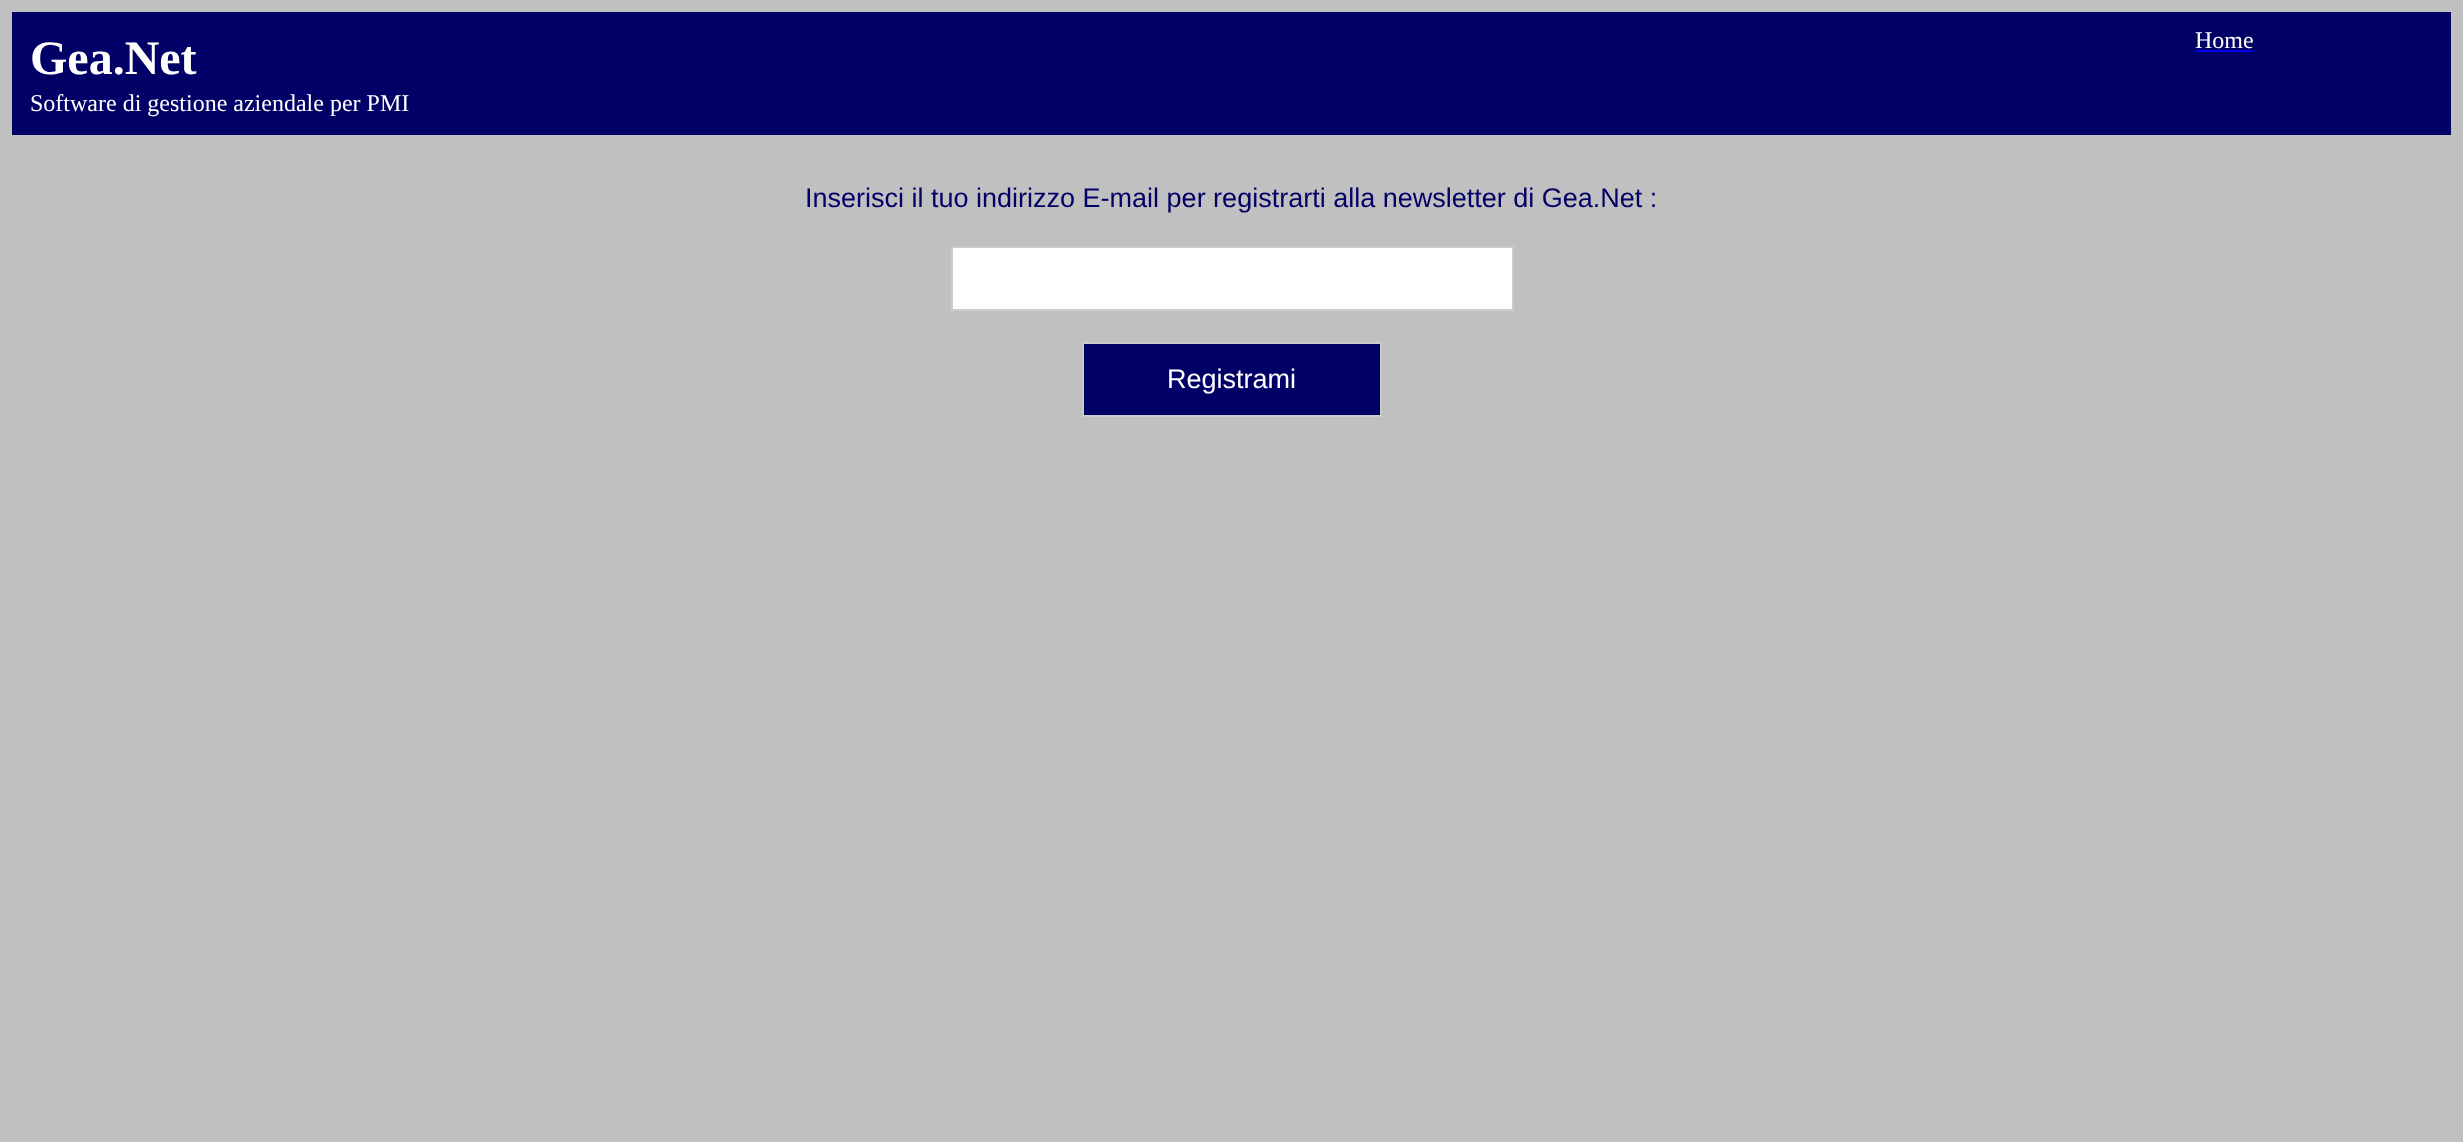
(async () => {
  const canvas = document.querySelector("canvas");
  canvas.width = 2463;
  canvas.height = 1142;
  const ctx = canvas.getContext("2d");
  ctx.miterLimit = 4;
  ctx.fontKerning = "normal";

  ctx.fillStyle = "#c0c0c0";
  ctx.fillRect(0, 0, 2463, 1142);
  ctx.fillStyle = "#000066";
  ctx.fillRect(12, 12, 2439, 123);
  ctx.fillStyle = "#0000ee";
  ctx.fillRect(2195, 50, 58, 2);
  ctx.fillStyle = "#ffffff";
  ctx.beginPath();
  ctx.rect(952, 247, 561, 63);
  ctx.fill();
  ctx.strokeStyle = "#cccccc";
  ctx.lineWidth = 2;
  ctx.stroke();
  ctx.fillStyle = "#000066";
  ctx.beginPath();
  ctx.rect(1083, 343, 298, 73);
  ctx.fill();
  ctx.stroke();
  ctx.font = "bold 48px Liberation Serif";
  ctx.fillStyle = "#ffffff";
  ctx.fillText("Gea.Net", 30, 74);
  ctx.font = "24px Liberation Serif";
  ctx.fillText("Software di gestione aziendale per PMI", 30, 111);
  ctx.fillText("Home", 2195, 48);
  ctx.font = "27px Liberation Sans";
  ctx.fillStyle = "#000066";
  ctx.fillText("Inserisci il tuo indirizzo E-mail per registrarti alla newsletter di Gea.Net :", 805, 207);
  ctx.fillStyle = "#ffffff";
  ctx.fillText("Registrami", 1167, 388);
})();
